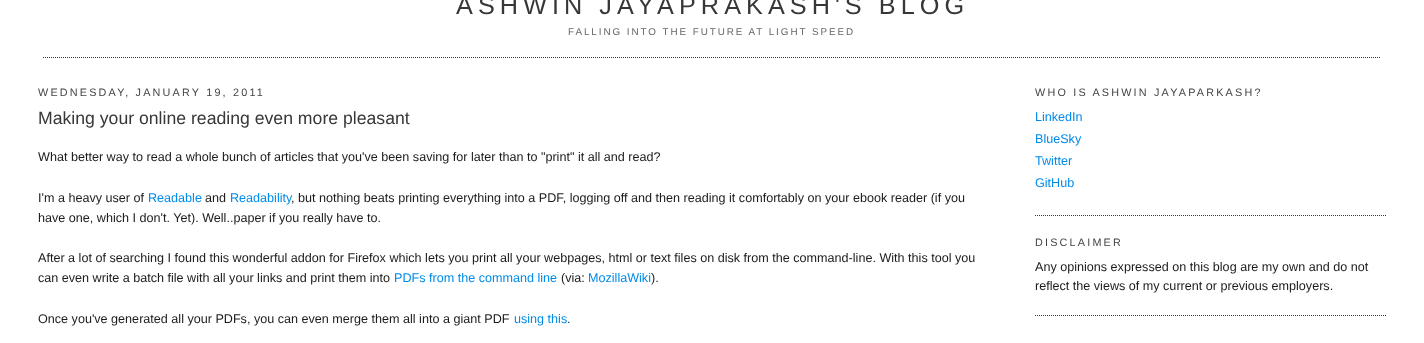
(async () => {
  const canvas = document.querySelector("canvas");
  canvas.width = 1424;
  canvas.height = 343;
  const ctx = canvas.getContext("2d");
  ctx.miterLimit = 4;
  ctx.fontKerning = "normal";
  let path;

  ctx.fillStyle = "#ffffff";
  ctx.fillRect(0, 0, 1424, 343);
  path = new Path2D("M43 57.5H1381");
  ctx.strokeStyle = "#373737";
  ctx.setLineDash([1, 1]);
  ctx.stroke(path);
  path = new Path2D("M1035 215.5H1386");
  ctx.stroke(path);
  path = new Path2D("M1035 315.5H1386");
  ctx.stroke(path);
  ctx.letterSpacing = "5.05px";
  ctx.font = "25.25px Liberation Sans";
  ctx.fillStyle = "#373737";
  ctx.fillText("ASHWIN JAYAPRAKASH'S BLOG", 456, 14);
  ctx.letterSpacing = "1.95px";
  ctx.font = "9.85px Liberation Sans";
  ctx.fillStyle = "#666666";
  ctx.fillText("FALLING INTO THE FUTURE AT LIGHT SPEED", 568, 35);
  ctx.letterSpacing = "2.2px";
  ctx.font = "10.8px Liberation Sans";
  ctx.fillStyle = "#444444";
  ctx.fillText("WEDNESDAY, JANUARY 19, 2011", 38, 96);
  ctx.letterSpacing = "0px";
  ctx.font = "17.65px Liberation Sans";
  ctx.fillStyle = "#373737";
  ctx.fillText("Making your online reading even more pleasant", 38, 124);
  ctx.font = "12.6px Liberation Sans";
  ctx.fillStyle = "#1b1b1b";
  ctx.fillText("What better way to read a whole bunch of articles that you've been saving for later than to \"print\" it all and read?", 38, 161);
  ctx.fillText("I'm a heavy user of", 38, 202);
  ctx.fillStyle = "#008bea";
  ctx.fillText("Readable", 148, 202);
  ctx.fillStyle = "#1b1b1b";
  ctx.fillText("and", 205, 202);
  ctx.fillStyle = "#008bea";
  ctx.fillText("Readability", 230, 202);
  ctx.fillStyle = "#1b1b1b";
  for (const [text, x, y] of [
    [", but nothing beats printing everything into a PDF, logging off and then reading it comfortably on your ebook reader (if you", 291, 202],
    ["have one, which I don't. Yet). Well..paper if you really have to.", 38, 222],
    ["After a lot of searching I found this wonderful addon for Firefox which lets you print all your webpages, html or text files on disk from the command-line. With this tool you", 38, 262],
    ["can even write a batch file with all your links and print them into", 38, 282],
  ]) {
    ctx.fillText(text, x, y);
  }
  ctx.fillStyle = "#008bea";
  ctx.fillText("PDFs from the command line", 394, 282);
  ctx.fillStyle = "#1b1b1b";
  ctx.fillText("(via:", 561, 282);
  ctx.fillStyle = "#008bea";
  ctx.fillText("MozillaWiki", 588, 282);
  ctx.fillStyle = "#1b1b1b";
  ctx.fillText(").", 651, 282);
  ctx.fillText("Once you've generated all your PDFs, you can even merge them all into a giant PDF", 38, 323);
  ctx.fillStyle = "#008bea";
  ctx.fillText("using this", 514, 323);
  ctx.fillStyle = "#1b1b1b";
  ctx.fillText(".", 567, 323);
  ctx.letterSpacing = "2.2px";
  ctx.font = "10.8px Liberation Sans";
  ctx.fillStyle = "#444444";
  ctx.fillText("WHO IS ASHWIN JAYAPARKASH?", 1035, 96);
  ctx.letterSpacing = "0px";
  ctx.font = "12.6px Liberation Sans";
  ctx.fillStyle = "#008bea";
  for (const [text, x, y] of [
    ["LinkedIn", 1035, 121],
    ["BlueSky", 1035, 143],
    ["Twitter", 1035, 165],
    ["GitHub", 1035, 187],
  ]) {
    ctx.fillText(text, x, y);
  }
  ctx.letterSpacing = "2.2px";
  ctx.font = "10.8px Liberation Sans";
  ctx.fillStyle = "#444444";
  ctx.fillText("DISCLAIMER", 1035, 246);
  ctx.letterSpacing = "0px";
  ctx.font = "12.6px Liberation Sans";
  ctx.fillStyle = "#1b1b1b";
  ctx.fillText("Any opinions expressed on this blog are my own and do not", 1035, 271);
  ctx.fillText("reflect the views of my current or previous employers.", 1035, 290);
})();
